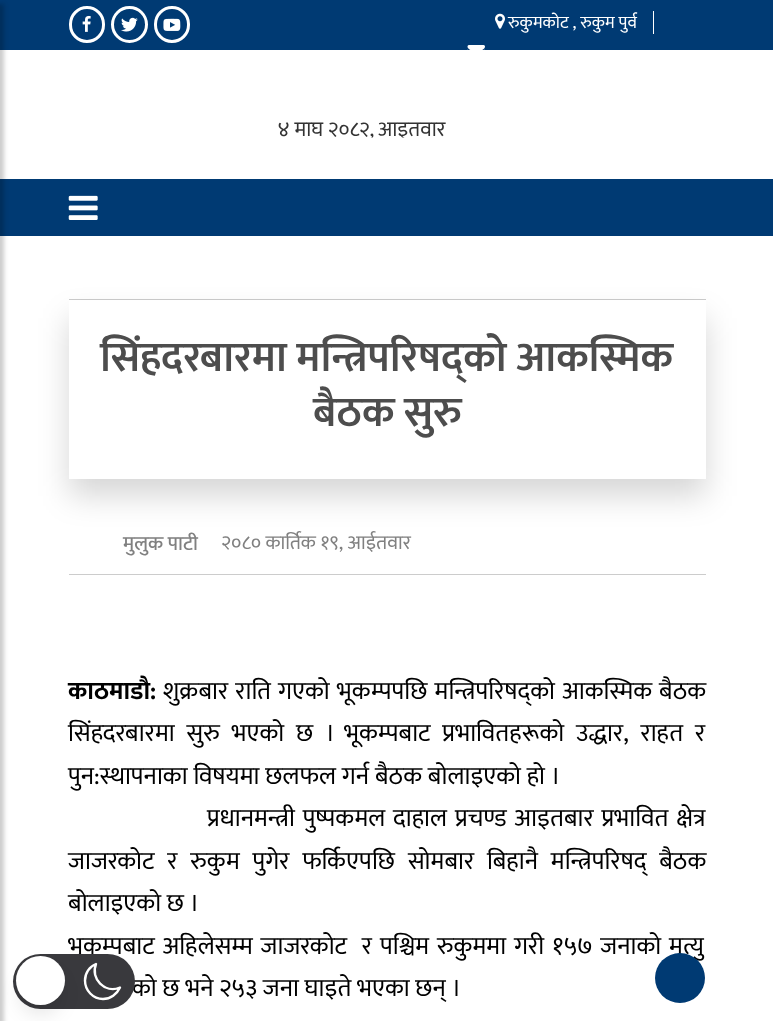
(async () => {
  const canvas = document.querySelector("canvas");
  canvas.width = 773;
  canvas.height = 1021;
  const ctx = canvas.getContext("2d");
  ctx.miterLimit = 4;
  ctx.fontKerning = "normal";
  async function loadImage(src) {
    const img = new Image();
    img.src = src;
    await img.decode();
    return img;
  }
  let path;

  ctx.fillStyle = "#ffffff";
  ctx.fillRect(0, 0, 773, 1021);
  ctx.fillStyle = "#003a73";
  ctx.fillRect(0, 0, 773, 50);
  ctx.fillRect(0, 179, 773, 57);
  ctx.fillStyle = "rgba(0, 0, 0, 0.2)";
  ctx.filter = "blur(2px)";
  ctx.beginPath();
  ctx.rect(-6, 4, 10, 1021);
  ctx.fill();
  ctx.filter = "none";
  ctx.beginPath();
  ctx.roundRect(70.5, 7.5, 33, 34, 16.5);
  ctx.strokeStyle = "#ffffff";
  ctx.lineWidth = 3;
  ctx.stroke();
  ctx.drawImage(await loadImage("img/1.png"), 82, 15, 9, 17);
  ctx.beginPath();
  ctx.arc(129.5, 24.5, 17, 0, Math.PI * 2);
  ctx.stroke();
  ctx.drawImage(await loadImage("img/2.png"), 121, 17, 17, 15);
  ctx.beginPath();
  ctx.roundRect(155.5, 7.5, 33, 34, 16.5);
  ctx.stroke();
  ctx.drawImage(await loadImage("img/3.png"), 163, 18, 18, 13);
  ctx.fillStyle = "#ffffff";
  ctx.fillRect(653, 11, 1, 23);
  ctx.drawImage(await loadImage("img/4.png"), 495, 13, 10, 16);
  ctx.drawImage(await loadImage("img/5.png"), 467, 45, 18, 5);
  ctx.drawImage(await loadImage("img/6.png"), 278, 122, 168, 16);
  ctx.drawImage(await loadImage("img/7.png"), 68, 195, 30, 25);
  ctx.fillStyle = "#cccccc";
  ctx.fillRect(69, 299, 637, 1);
  ctx.fillStyle = "rgba(0, 0, 0, 0.16)";
  ctx.filter = "blur(15.5px)";
  ctx.beginPath();
  ctx.rect(69, 318, 637, 178);
  ctx.fill();
  ctx.filter = "none";
  ctx.fillStyle = "#ffffff";
  ctx.fillRect(69, 300, 637, 179);
  ctx.fillStyle = "#cccccc";
  ctx.fillRect(69, 574, 637, 1);
  ctx.font = "17.5px Ek Mukta";
  ctx.fillStyle = "#ffffff";
  ctx.fillText("रुकुमकोट , रुकुम पुर्व", 508, 28);
  ctx.font = "600 42.5px Ek Mukta";
  ctx.fillStyle = "#4d4d4d";
  ctx.fillText("सिंहदरबारमा मन्त्रिपरिषद्को आकस्मिक", 100, 371);
  ctx.fillText("बैठक सुरु", 313, 426);
  ctx.font = "500 20px Ek Mukta";
  ctx.fillStyle = "#808080";
  ctx.fillText("मुलुक पाटी", 123, 550);
  ctx.font = "20px Ek Mukta";
  ctx.fillText("२०८० कार्तिक १९, आईतवार", 221, 549);
  ctx.font = "bold 25px Ek Mukta";
  ctx.fillStyle = "#000000";
  ctx.fillText("काठमाडौ:", 68, 699);
  ctx.wordSpacing = "1.5px";
  ctx.font = "25px Ek Mukta";
  ctx.fillText("शुक्रबार राति गएको भूकम्पपछि मन्त्रिपरिषद्को आकस्मिक बैठक", 163, 699);
  ctx.wordSpacing = "6.25px";
  ctx.fillText("सिंहदरबारमा सुरु भएको छ । भूकम्पबाट प्रभावितहरूको उद्धार, राहत र", 68, 741);
  ctx.wordSpacing = "0.25px";
  ctx.fillText("पुन:स्थापनाका विषयमा छलफल गर्न बैठक बोलाइएको हो ।", 68, 784);
  ctx.wordSpacing = "2.25px";
  ctx.fillText("प्रधानमन्त्री पुष्पकमल दाहाल प्रचण्ड आइतबार प्रभावित क्षेत्र", 207, 826);
  ctx.wordSpacing = "7.25px";
  ctx.fillText("जाजरकोट र रुकुम पुगेर फर्किएपछि सोमबार बिहानै मन्त्रिपरिषद् बैठक", 68, 869);
  ctx.wordSpacing = "0px";
  ctx.fillText("बोलाइएको छ ।", 68, 911);
  ctx.wordSpacing = "2.25px";
  ctx.fillText("भूकम्पबाट अहिलेसम्म जाजरकोट  र पश्चिम रुकुममा गरी १५७ जनाको मृत्यु", 68, 954);
  ctx.wordSpacing = "0px";
  ctx.fillText("को छ भने २५३ जना घाइते भएका छन् ।", 132, 996);
  ctx.fillStyle = "#39393d";
  ctx.beginPath();
  ctx.roundRect(13, 954, 122, 55, 27.5);
  ctx.fill();
  path = new Path2D("M120 987.5C105 994 90 978.5 96 964C89.5 966.5 85 973 85 980.5C85 990.5 93 999 103 999C110.5 999 117 994 120 987.5Z");
  ctx.lineWidth = 2.4;
  ctx.lineCap = "round";
  ctx.lineJoin = "round";
  ctx.stroke(path);
  ctx.fillStyle = "rgba(0, 0, 0, 0.1)";
  ctx.filter = "blur(9.5px)";
  ctx.beginPath();
  ctx.roundRect(20, 973, 41, 41, 20.5);
  ctx.fill();
  ctx.filter = "none";
  ctx.fillStyle = "#ffffff";
  ctx.beginPath();
  ctx.arc(40.5, 980.5, 24.5, 0, Math.PI * 2);
  ctx.fill();
  ctx.fillStyle = "#003a73";
  ctx.beginPath();
  ctx.arc(680, 978, 25, 0, Math.PI * 2);
  ctx.fill();
})();
